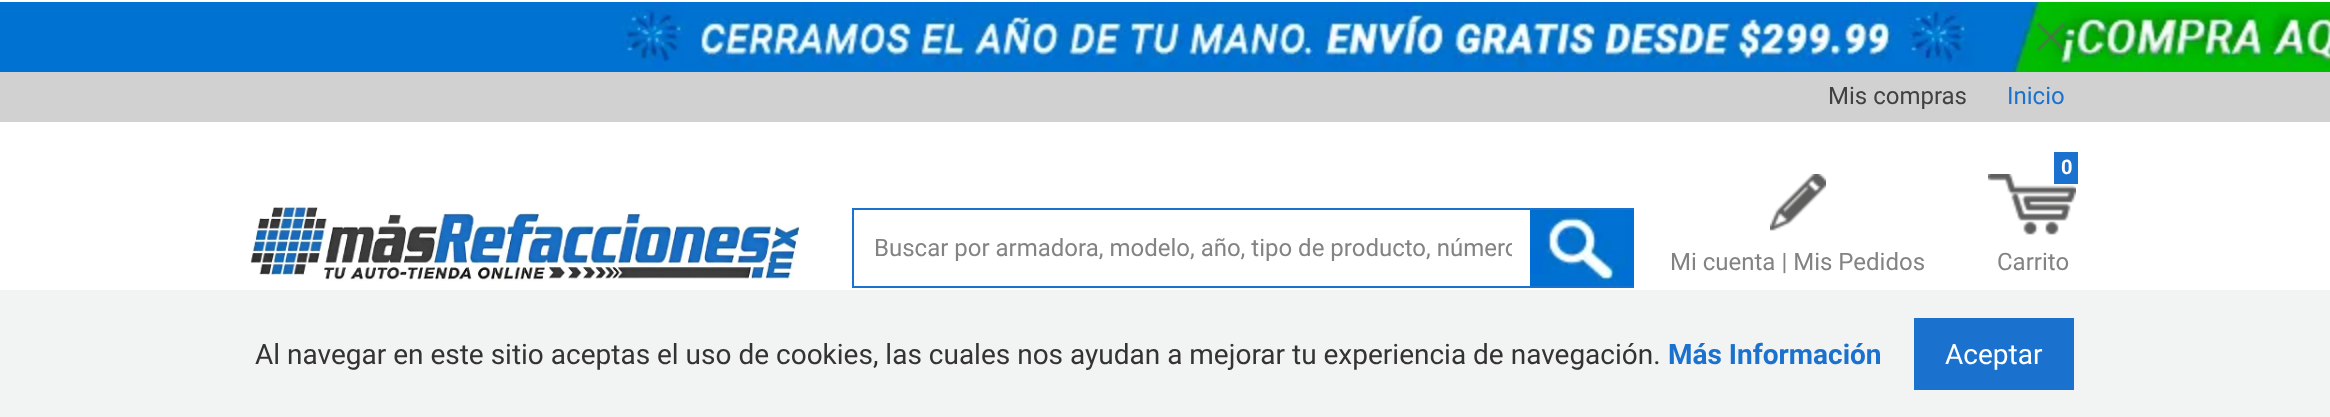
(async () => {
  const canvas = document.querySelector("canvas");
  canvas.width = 2330;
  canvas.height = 417;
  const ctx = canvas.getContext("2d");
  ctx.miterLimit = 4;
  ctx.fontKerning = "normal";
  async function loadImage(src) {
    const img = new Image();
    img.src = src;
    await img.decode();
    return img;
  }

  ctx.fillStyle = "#ffffff";
  ctx.fillRect(0, 0, 2330, 417);
  ctx.drawImage(await loadImage("img/1.png"), 0, 2, 2330, 70);
  ctx.drawImage(await loadImage("img/2.png"), 2036, 22, 30, 30);
  ctx.fillStyle = "#d1d1d1";
  ctx.fillRect(0, 72, 2330, 50);
  ctx.drawImage(await loadImage("img/3.png"), 250, 206, 550, 75);
  ctx.strokeStyle = "#1b71ce";
  ctx.lineWidth = 2;
  ctx.strokeRect(853, 209, 780, 78);
  ctx.drawImage(await loadImage("img/4.png"), 1530, 210, 104, 76);
  ctx.drawImage(await loadImage("img/5.png"), 1770, 174, 56, 57);
  ctx.drawImage(await loadImage("img/6.png"), 1988, 174, 88, 61);
  for (const [x, y, w, h, color] of [
    [2054, 152, 24, 32, "#1b71ce"],
    [0, 290, 2330, 127, "#f2f3f3"],
    [1914, 318, 160, 72, "#1b71ce"],
  ]) {
    ctx.fillStyle = color;
    ctx.fillRect(x, y, w, h);
  }
  ctx.font = "24px Roboto";
  ctx.fillStyle = "#414141";
  ctx.fillText("Mis compras", 1828, 104);
  ctx.fillStyle = "#1b71ce";
  ctx.fillText("Inicio", 2007, 104);
  ctx.save();
  ctx.beginPath();
  ctx.rect(874, 234, 638, 28);
  ctx.clip();
  ctx.fillStyle = "#838383";
  ctx.fillText("Buscar por armadora, modelo, año, tipo de producto, número", 874, 256);
  ctx.restore();
  ctx.fillStyle = "#838383";
  ctx.fillText("Mi cuenta | Mis Pedidos", 1670, 270);
  ctx.font = "bold 20px Roboto";
  ctx.fillStyle = "#ffffff";
  ctx.fillText("0", 2061, 174);
  ctx.font = "24px Roboto";
  ctx.fillStyle = "#838383";
  ctx.fillText("Carrito", 1997, 270);
  ctx.font = "28px Roboto";
  ctx.fillStyle = "#333333";
  ctx.fillText("Al navegar en este sitio aceptas el uso de cookies, las cuales nos ayudan a mejorar tu experiencia de navegación.", 255, 364);
  ctx.font = "bold 28px Roboto";
  ctx.fillStyle = "#1b71ce";
  ctx.fillText("Más Información", 1668, 364);
  ctx.font = "28px Roboto";
  ctx.fillStyle = "#ffffff";
  ctx.fillText("Aceptar", 1945, 364);
})();
